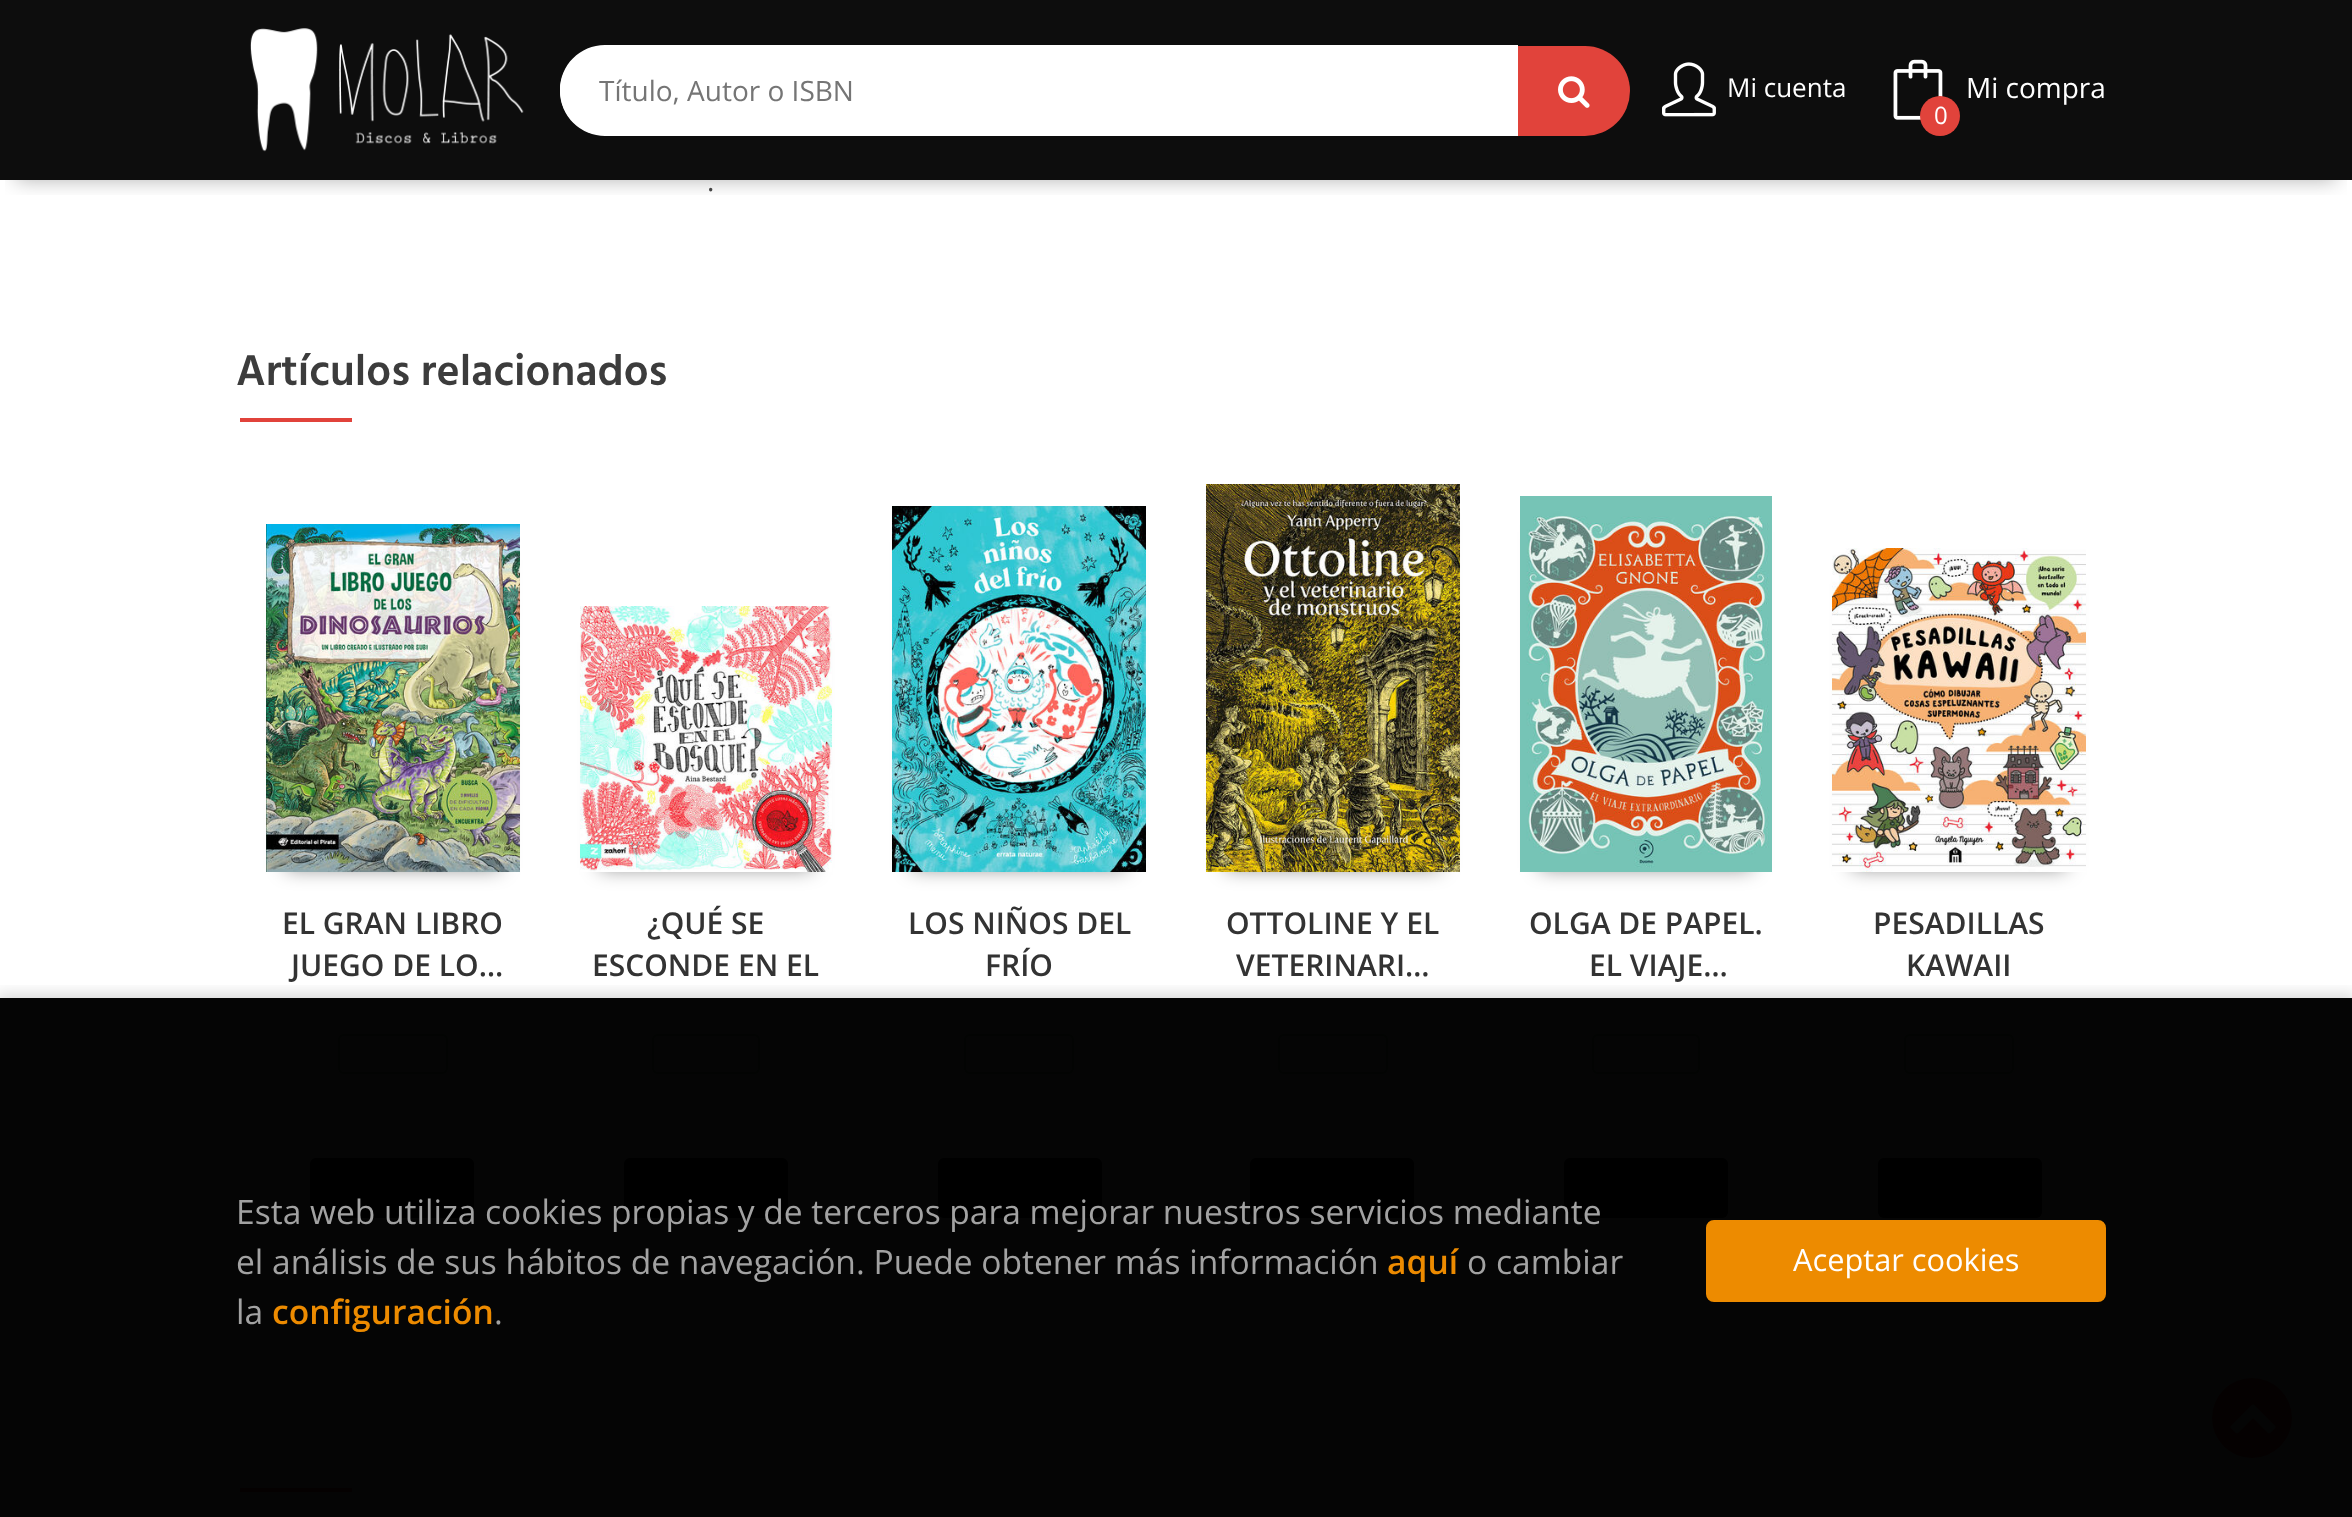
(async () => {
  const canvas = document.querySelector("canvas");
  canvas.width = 2352;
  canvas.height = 1517;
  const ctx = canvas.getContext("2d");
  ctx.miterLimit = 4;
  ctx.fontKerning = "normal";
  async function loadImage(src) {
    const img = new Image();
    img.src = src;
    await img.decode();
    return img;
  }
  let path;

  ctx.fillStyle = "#ffffff";
  ctx.fillRect(0, 0, 2352, 1517);
  ctx.save();
  ctx.beginPath();
  ctx.rect(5, 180, 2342, 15);
  ctx.clip();
  ctx.fillStyle = "rgba(0, 0, 0, 0.3)";
  ctx.filter = "blur(10px)";
  ctx.beginPath();
  ctx.rect(16, 32, 2320, 148);
  ctx.fill();
  ctx.filter = "none";
  ctx.restore();
  ctx.fillStyle = "rgba(0, 0, 0, 0.95)";
  ctx.fillRect(0, 0, 2352, 180);
  ctx.drawImage(await loadImage("img/1.png"), 250, 28, 274, 124);
  ctx.fillStyle = "#ffffff";
  ctx.beginPath();
  ctx.roundRect(560, 46, 958, 90, [45, 0, 0, 45]);
  ctx.fill();
  path = new Path2D("M605 45H1518V135H605C580 135 560 115 560 90C560 65 580 45 605 45ZM605 49H1518V131H605C582 131 564 113 564 90C564 67 582 49 605 49Z");
  ctx.fill(path, "evenodd");
  ctx.fillStyle = "#e1433b";
  ctx.beginPath();
  ctx.roundRect(1518, 46, 112, 90, [0, 45, 45, 0]);
  ctx.fill();
  ctx.drawImage(await loadImage("img/2.png"), 1558, 76, 32, 32);
  ctx.drawImage(await loadImage("img/3.png"), 1662, 62, 54, 55);
  ctx.drawImage(await loadImage("img/4.png"), 1893, 59, 50, 61);
  ctx.beginPath();
  ctx.arc(1940, 116, 20, 0, Math.PI * 2);
  ctx.fill();
  ctx.fillRect(240, 418, 112, 4);
  ctx.fillStyle = "rgba(0, 0, 0, 0.5)";
  ctx.filter = "blur(10px)";
  ctx.beginPath();
  ctx.rect(286, 560, 214, 308);
  ctx.fill();
  ctx.filter = "none";
  ctx.drawImage(await loadImage("img/5.png"), 266, 524, 254, 348);
  ctx.beginPath();
  ctx.roundRect(339, 1035, 108, 38, 5);
  ctx.strokeStyle = "#80c580";
  ctx.lineWidth = 2;
  ctx.stroke();
  ctx.fillStyle = "#000000";
  ctx.beginPath();
  ctx.roundRect(310, 1158, 164, 60, 6);
  ctx.fill();
  ctx.fillStyle = "rgba(0, 0, 0, 0.5)";
  ctx.filter = "blur(10px)";
  ctx.beginPath();
  ctx.rect(600, 642, 212, 226);
  ctx.fill();
  ctx.filter = "none";
  ctx.drawImage(await loadImage("img/6.png"), 580, 606, 252, 266);
  ctx.beginPath();
  ctx.roundRect(653, 1035, 106, 38, 5);
  ctx.stroke();
  ctx.fillStyle = "#000000";
  ctx.beginPath();
  ctx.roundRect(624, 1158, 164, 60, 6);
  ctx.fill();
  ctx.fillStyle = "rgba(0, 0, 0, 0.5)";
  ctx.filter = "blur(10px)";
  ctx.beginPath();
  ctx.rect(912, 542, 214, 326);
  ctx.fill();
  ctx.filter = "none";
  ctx.drawImage(await loadImage("img/7.png"), 892, 506, 254, 366);
  ctx.beginPath();
  ctx.roundRect(965, 1035, 108, 38, 5);
  ctx.stroke();
  ctx.fillStyle = "#000000";
  ctx.beginPath();
  ctx.roundRect(938, 1158, 164, 60, 6);
  ctx.fill();
  ctx.fillStyle = "rgba(0, 0, 0, 0.5)";
  ctx.filter = "blur(10px)";
  ctx.beginPath();
  ctx.rect(1226, 520, 214, 348);
  ctx.fill();
  ctx.filter = "none";
  ctx.drawImage(await loadImage("img/8.png"), 1206, 484, 254, 388);
  ctx.beginPath();
  ctx.roundRect(1279, 1035, 108, 38, 5);
  ctx.stroke();
  ctx.fillStyle = "#000000";
  ctx.beginPath();
  ctx.roundRect(1250, 1158, 164, 60, 6);
  ctx.fill();
  ctx.fillStyle = "rgba(0, 0, 0, 0.5)";
  ctx.filter = "blur(10px)";
  ctx.beginPath();
  ctx.rect(1540, 532, 212, 336);
  ctx.fill();
  ctx.filter = "none";
  ctx.drawImage(await loadImage("img/9.png"), 1520, 496, 252, 376);
  ctx.beginPath();
  ctx.roundRect(1593, 1035, 106, 38, 5);
  ctx.stroke();
  ctx.fillStyle = "#000000";
  ctx.beginPath();
  ctx.roundRect(1564, 1158, 164, 60, 6);
  ctx.fill();
  ctx.fillStyle = "rgba(0, 0, 0, 0.5)";
  ctx.filter = "blur(10px)";
  ctx.beginPath();
  ctx.rect(1852, 584, 214, 284);
  ctx.fill();
  ctx.filter = "none";
  ctx.drawImage(await loadImage("img/10.png"), 1832, 548, 254, 324);
  ctx.beginPath();
  ctx.roundRect(1905, 1035, 108, 38, 5);
  ctx.stroke();
  ctx.fillStyle = "#000000";
  ctx.beginPath();
  ctx.roundRect(1878, 1158, 164, 60, 6);
  ctx.fill();
  ctx.fillStyle = "#e1433b";
  ctx.fillRect(240, 1488, 112, 4);
  ctx.beginPath();
  ctx.arc(2252, 1418, 40, 0, Math.PI * 2);
  ctx.fill();
  ctx.drawImage(await loadImage("img/11.png"), 2230, 1404, 46, 30);
  ctx.save();
  ctx.beginPath();
  ctx.rect(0, 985, 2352, 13);
  ctx.clip();
  ctx.fillStyle = "rgba(0, 0, 0, 0.15)";
  ctx.filter = "blur(8px)";
  ctx.beginPath();
  ctx.rect(-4, 994, 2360, 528);
  ctx.fill();
  ctx.filter = "none";
  ctx.restore();
  ctx.fillStyle = "rgba(0, 0, 0, 0.98)";
  ctx.fillRect(0, 998, 2352, 519);
  ctx.fillStyle = "#ed8b00";
  ctx.beginPath();
  ctx.roundRect(1707, 1221, 398, 80, 7);
  ctx.fill();
  ctx.strokeStyle = "#ed8b00";
  ctx.stroke();
  ctx.font = "28px Open Sans";
  ctx.fillStyle = "#757575";
  ctx.fillText("Título, Autor o ISBN", 599, 101);
  ctx.font = "26px Open Sans";
  ctx.fillStyle = "#ffffff";
  ctx.fillText("Mi cuenta", 1727, 97);
  ctx.font = "28px Open Sans";
  ctx.fillText("Mi compra", 1966, 98);
  ctx.font = "24px Open Sans";
  ctx.fillText("0", 1934, 124);
  ctx.font = "28px Open Sans";
  ctx.fillStyle = "#444444";
  ctx.fillText(".", 707, 191);
  ctx.font = "600 44px Hind";
  ctx.fillStyle = "#3c3c3c";
  ctx.fillText("Artículos relacionados", 236, 385);
  ctx.font = "600 30px Open Sans";
  ctx.fillStyle = "#333333";
  for (const [text, x, y] of [
    ["EL GRAN LIBRO", 282, 934],
    ["JUEGO DE LO…", 291, 976],
    ["¿QUÉ SE", 647, 934],
    ["ESCONDE EN EL", 592, 976],
    ["LOS NIÑOS DEL", 908, 934],
    ["FRÍO", 985, 976],
    ["OTTOLINE Y EL", 1226, 934],
    ["VETERINARI…", 1236, 976],
    ["OLGA DE PAPEL.", 1529, 934],
    ["EL VIAJE…", 1589, 976],
    ["PESADILLAS", 1873, 934],
    ["KAWAII", 1906, 976],
  ]) {
    ctx.fillText(text, x, y);
  }
  ctx.wordSpacing = "-0.1px";
  ctx.font = "33.6px Open Sans";
  ctx.fillStyle = "#a2a2a2";
  ctx.fillText("Esta web utiliza cookies propias y de terceros para mejorar nuestros servicios mediante", 236, 1224);
  ctx.wordSpacing = "0px";
  ctx.fillText("el análisis de sus hábitos de navegación. Puede obtener más información", 236, 1274);
  ctx.font = "600 33.6px Open Sans";
  ctx.fillStyle = "#ed8b00";
  ctx.fillText("aquí", 1387, 1274);
  ctx.font = "33.6px Open Sans";
  ctx.fillStyle = "#a2a2a2";
  ctx.fillText("o cambiar", 1467, 1274);
  ctx.fillText("la", 236, 1324);
  ctx.font = "600 33.6px Open Sans";
  ctx.fillStyle = "#ed8b00";
  ctx.fillText("configuración", 272, 1324);
  ctx.font = "33.6px Open Sans";
  ctx.fillStyle = "#a2a2a2";
  ctx.fillText(".", 494, 1324);
  ctx.font = "30.75px Open Sans";
  ctx.fillStyle = "#ffffff";
  ctx.fillText("Aceptar cookies", 1793, 1271);
})();
